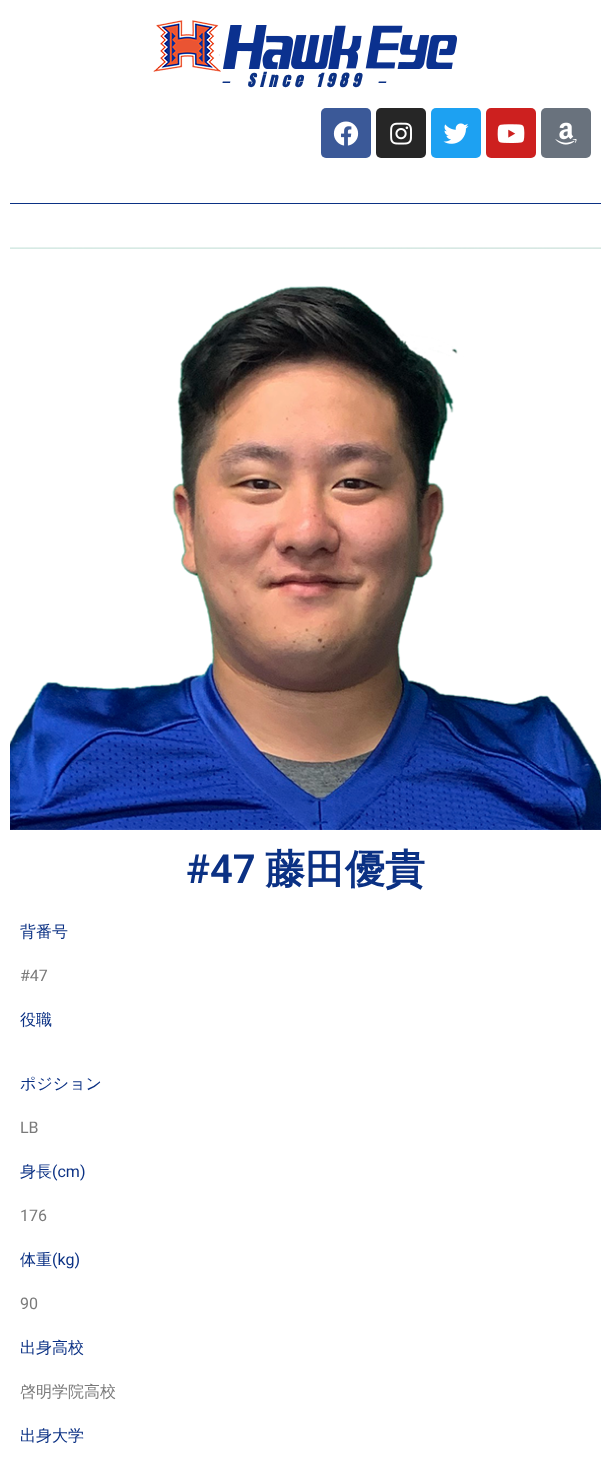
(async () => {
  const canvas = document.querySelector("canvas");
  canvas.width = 611;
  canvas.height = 1459;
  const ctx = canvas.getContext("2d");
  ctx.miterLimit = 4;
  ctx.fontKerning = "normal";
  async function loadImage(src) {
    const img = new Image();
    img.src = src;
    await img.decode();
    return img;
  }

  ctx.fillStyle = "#ffffff";
  ctx.fillRect(0, 0, 611, 1459);
  ctx.drawImage(await loadImage("img/1.png"), 153, 20, 304, 52);
  ctx.fillStyle = "#3b5998";
  ctx.beginPath();
  ctx.roundRect(321, 108, 50, 50, 5);
  ctx.fill();
  ctx.drawImage(await loadImage("img/2.png"), 333, 121, 26, 25);
  ctx.fillStyle = "#262626";
  ctx.beginPath();
  ctx.roundRect(376, 108, 50, 50, 5);
  ctx.fill();
  ctx.drawImage(await loadImage("img/3.png"), 390, 122, 22, 23);
  ctx.fillStyle = "#1da1f2";
  ctx.beginPath();
  ctx.roundRect(431, 108, 50, 50, 5);
  ctx.fill();
  ctx.drawImage(await loadImage("img/4.png"), 443, 123, 26, 21);
  ctx.fillStyle = "#cd201f";
  ctx.beginPath();
  ctx.roundRect(486, 108, 50, 50, 5);
  ctx.fill();
  ctx.drawImage(await loadImage("img/5.png"), 497, 124, 28, 19);
  ctx.fillStyle = "#69727d";
  ctx.beginPath();
  ctx.roundRect(541, 108, 50, 50, 5);
  ctx.fill();
  ctx.drawImage(await loadImage("img/6.png"), 555, 122, 22, 23);
  ctx.fillStyle = "#0b3184";
  ctx.fillRect(10, 203, 591, 1);
  ctx.drawImage(await loadImage("img/7.png"), 10, 247, 591, 583);
  ctx.letterSpacing = "5px";
  ctx.font = "italic bold 16px WenQuanYi Zen Hei";
  ctx.fillText("－", 217, 87);
  ctx.font = "italic bold 16px Anton";
  ctx.fillText("Since 1989", 247, 87);
  ctx.font = "italic bold 16px WenQuanYi Zen Hei";
  ctx.fillText("－", 373, 87);
  ctx.letterSpacing = "0px";
  ctx.font = "600 40px Roboto";
  ctx.fillText("#47", 186, 883);
  ctx.font = "bold 40px WenQuanYi Zen Hei";
  ctx.fillText("藤田優貴", 265, 883);
  ctx.font = "500 16px WenQuanYi Zen Hei";
  ctx.fillText("背番号", 20, 937);
  ctx.font = "16px Roboto";
  ctx.fillStyle = "#7a7a7a";
  ctx.fillText("#47", 20, 981);
  ctx.font = "500 16px WenQuanYi Zen Hei";
  ctx.fillStyle = "#0b3184";
  ctx.fillText("役職", 20, 1025);
  ctx.fillText("ポジション", 20, 1089);
  ctx.font = "16px Roboto";
  ctx.fillStyle = "#7a7a7a";
  ctx.fillText("LB", 20, 1133);
  ctx.font = "500 16px WenQuanYi Zen Hei";
  ctx.fillStyle = "#0b3184";
  ctx.fillText("身長", 20, 1177);
  ctx.font = "16px Roboto";
  ctx.fillText("(cm)", 52, 1177);
  ctx.fillStyle = "#7a7a7a";
  ctx.fillText("176", 20, 1221);
  ctx.font = "500 16px WenQuanYi Zen Hei";
  ctx.fillStyle = "#0b3184";
  ctx.fillText("体重", 20, 1265);
  ctx.font = "16px Roboto";
  ctx.fillText("(kg)", 52, 1265);
  ctx.fillStyle = "#7a7a7a";
  ctx.fillText("90", 20, 1309);
  ctx.font = "500 16px WenQuanYi Zen Hei";
  ctx.fillStyle = "#0b3184";
  ctx.fillText("出身高校", 20, 1353);
  ctx.fillStyle = "#7a7a7a";
  ctx.fillText("啓明学院高校", 20, 1397);
  ctx.fillStyle = "#0b3184";
  ctx.fillText("出身大学", 20, 1441);
})();
